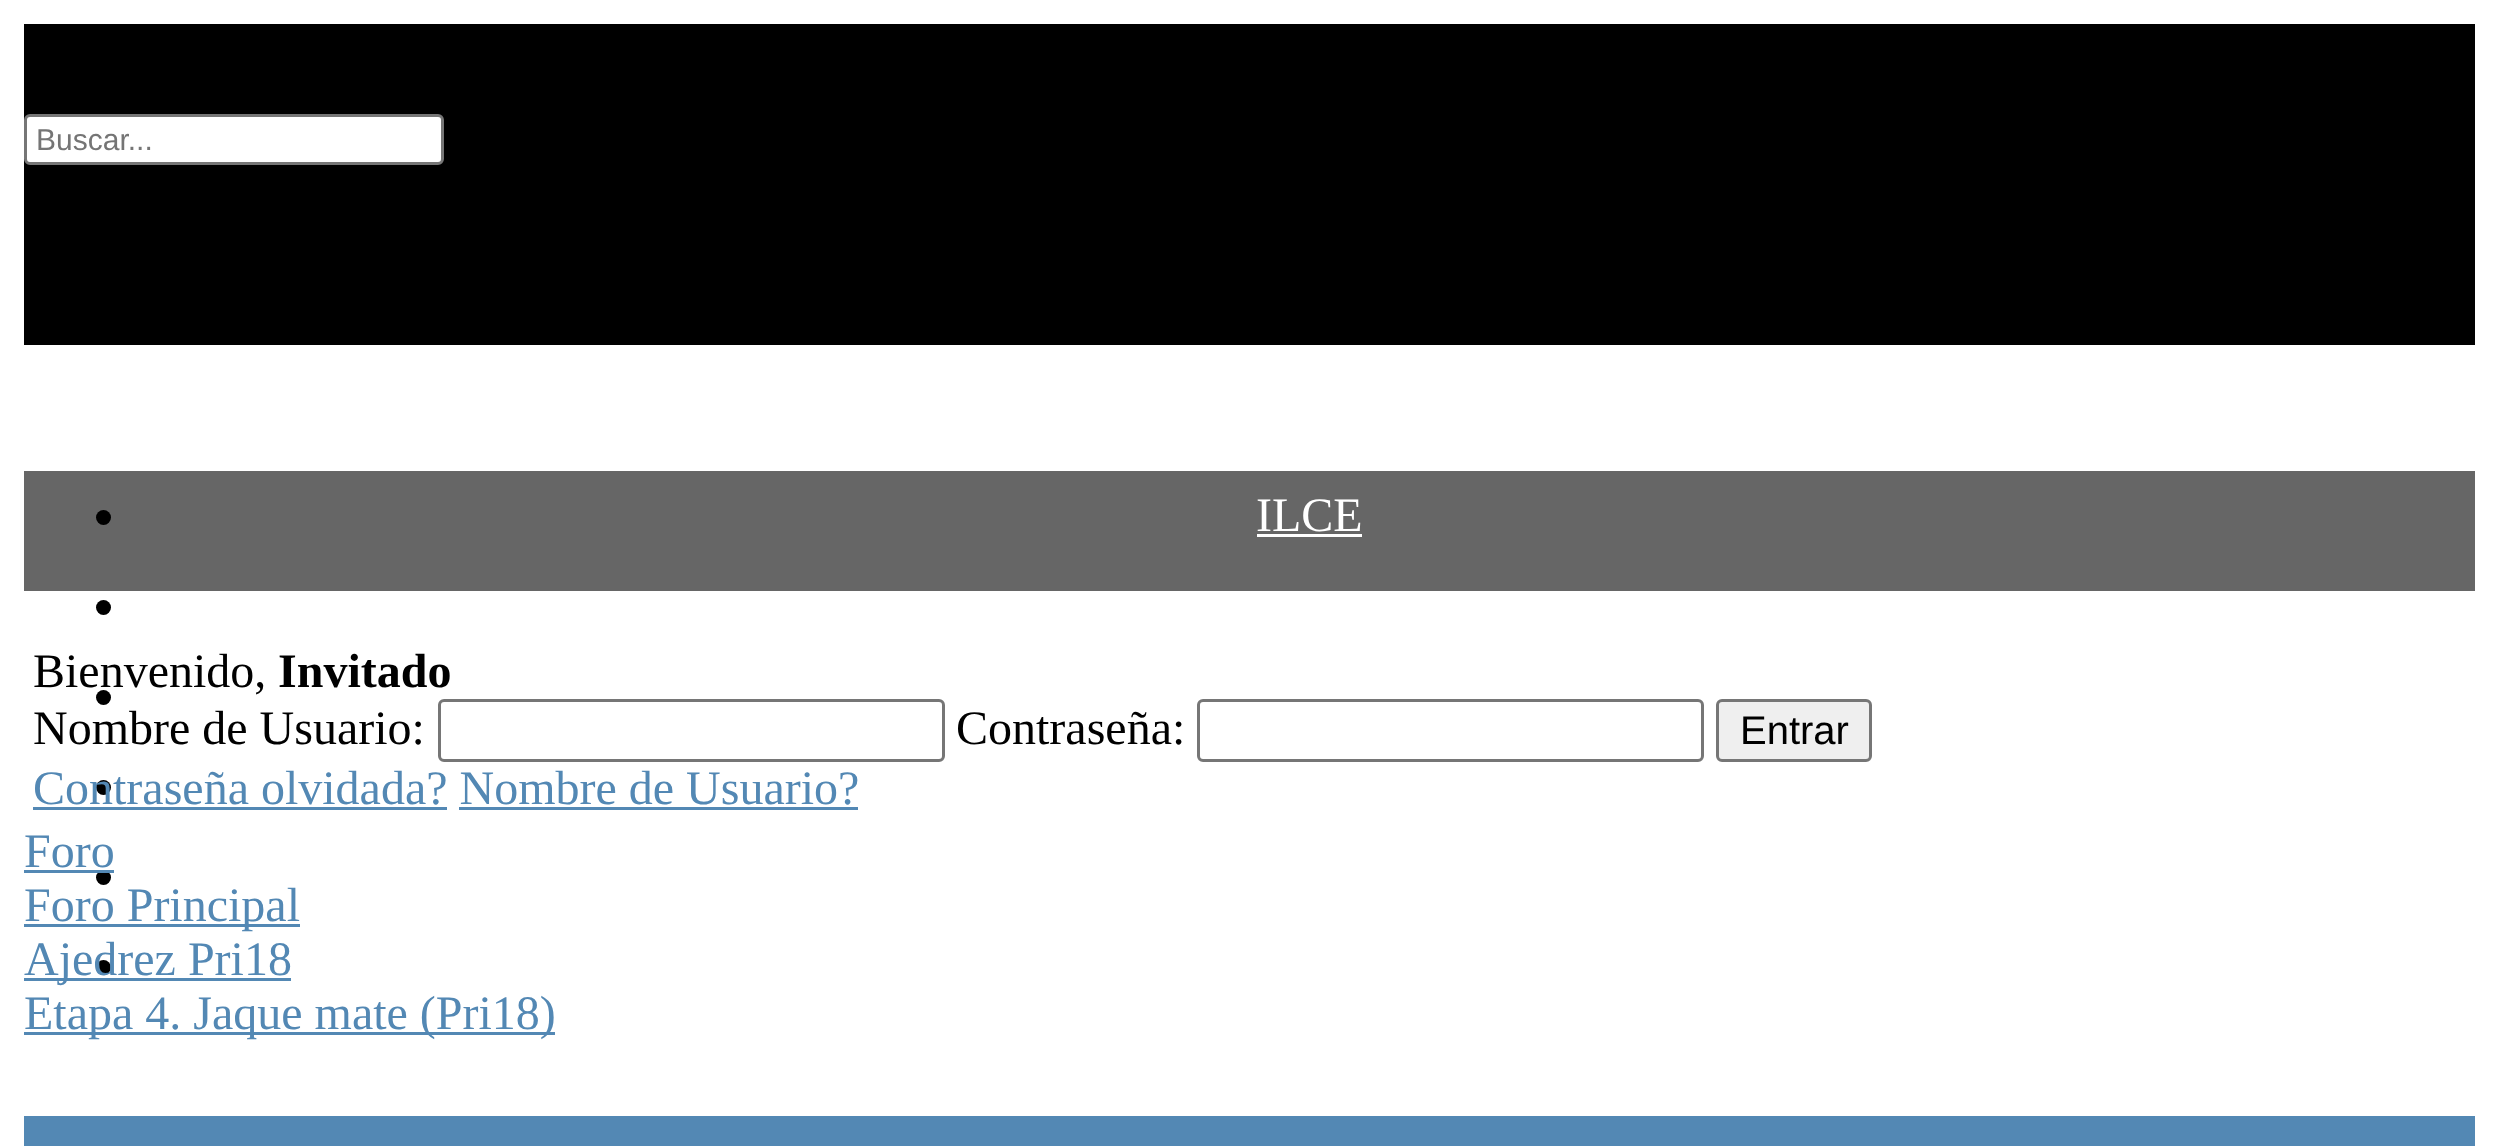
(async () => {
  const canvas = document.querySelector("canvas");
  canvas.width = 2497;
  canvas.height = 1146;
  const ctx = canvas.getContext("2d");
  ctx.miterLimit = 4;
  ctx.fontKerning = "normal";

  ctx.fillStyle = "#ffffff";
  ctx.fillRect(0, 0, 2497, 1146);
  ctx.fillStyle = "#000000";
  ctx.fillRect(24, 24, 2451, 321);
  ctx.fillStyle = "#ffffff";
  ctx.beginPath();
  ctx.roundRect(25.5, 115.5, 417, 48, 4.5);
  ctx.fill();
  ctx.strokeStyle = "#767676";
  ctx.lineWidth = 3;
  ctx.stroke();
  ctx.fillStyle = "#666666";
  ctx.fillRect(24, 471, 2451, 120);
  ctx.fillStyle = "#000000";
  ctx.beginPath();
  ctx.arc(103.5, 517.5, 7.5, 0, Math.PI * 2);
  ctx.fill();
  ctx.fillStyle = "#ffffff";
  ctx.fillRect(1257, 534, 105, 3);
  ctx.fillStyle = "#000000";
  ctx.beginPath();
  ctx.arc(103.5, 607.5, 7.5, 0, Math.PI * 2);
  ctx.fill();
  ctx.beginPath();
  ctx.arc(103.5, 697.5, 7.5, 0, Math.PI * 2);
  ctx.fill();
  ctx.beginPath();
  ctx.arc(103.5, 787.5, 7.5, 0, Math.PI * 2);
  ctx.fill();
  ctx.beginPath();
  ctx.arc(103.5, 877.5, 7.5, 0, Math.PI * 2);
  ctx.fill();
  ctx.beginPath();
  ctx.arc(103.5, 967.5, 7.5, 0, Math.PI * 2);
  ctx.fill();
  ctx.beginPath();
  ctx.roundRect(439.5, 700.5, 504, 60, 4.5);
  ctx.stroke();
  ctx.beginPath();
  ctx.roundRect(1198.5, 700.5, 504, 60, 4.5);
  ctx.stroke();
  ctx.fillStyle = "#efefef";
  ctx.beginPath();
  ctx.roundRect(1717.5, 700.5, 153, 60, 4.5);
  ctx.fill();
  ctx.stroke();
  for (const [x, y, w, h, color] of [
    [33, 807, 414, 3, "#5388b4"],
    [459, 807, 399, 3, "#5388b4"],
    [24, 870, 90, 3, "#5388b4"],
    [24, 924, 276, 3, "#5388b4"],
    [24, 978, 267, 3, "#5388b4"],
    [24, 1032, 531, 3, "#5388b4"],
    [24, 1116, 2451, 30, "#5388b4"],
  ]) {
    ctx.fillStyle = color;
    ctx.fillRect(x, y, w, h);
  }
  ctx.font = "30px Liberation Sans";
  ctx.fillStyle = "#757575";
  ctx.fillText("Buscar...", 36, 150);
  ctx.font = "48px Liberation Serif";
  ctx.fillStyle = "#ffffff";
  ctx.fillText("ILCE", 1256, 531);
  ctx.fillStyle = "#000000";
  ctx.fillText("Bienvenido,", 33, 687);
  ctx.font = "bold 48px Liberation Serif";
  ctx.fillText("Invitado", 278, 687);
  ctx.font = "48px Liberation Serif";
  ctx.fillText("Nombre de Usuario:", 33, 744);
  ctx.fillText("Contraseña:", 956, 744);
  ctx.font = "40px Liberation Sans";
  ctx.fillText("Entrar", 1740, 744);
  ctx.font = "48px Liberation Serif";
  ctx.fillStyle = "#5388b4";
  for (const [text, x, y] of [
    ["Contraseña olvidada? Nombre de Usuario?", 33, 804],
    ["Foro", 24, 867],
    ["Foro Principal", 24, 921],
    ["Ajedrez Pri18", 24, 975],
    ["Etapa 4. Jaque mate (Pri18)", 24, 1029],
  ]) {
    ctx.fillText(text, x, y);
  }
})();
